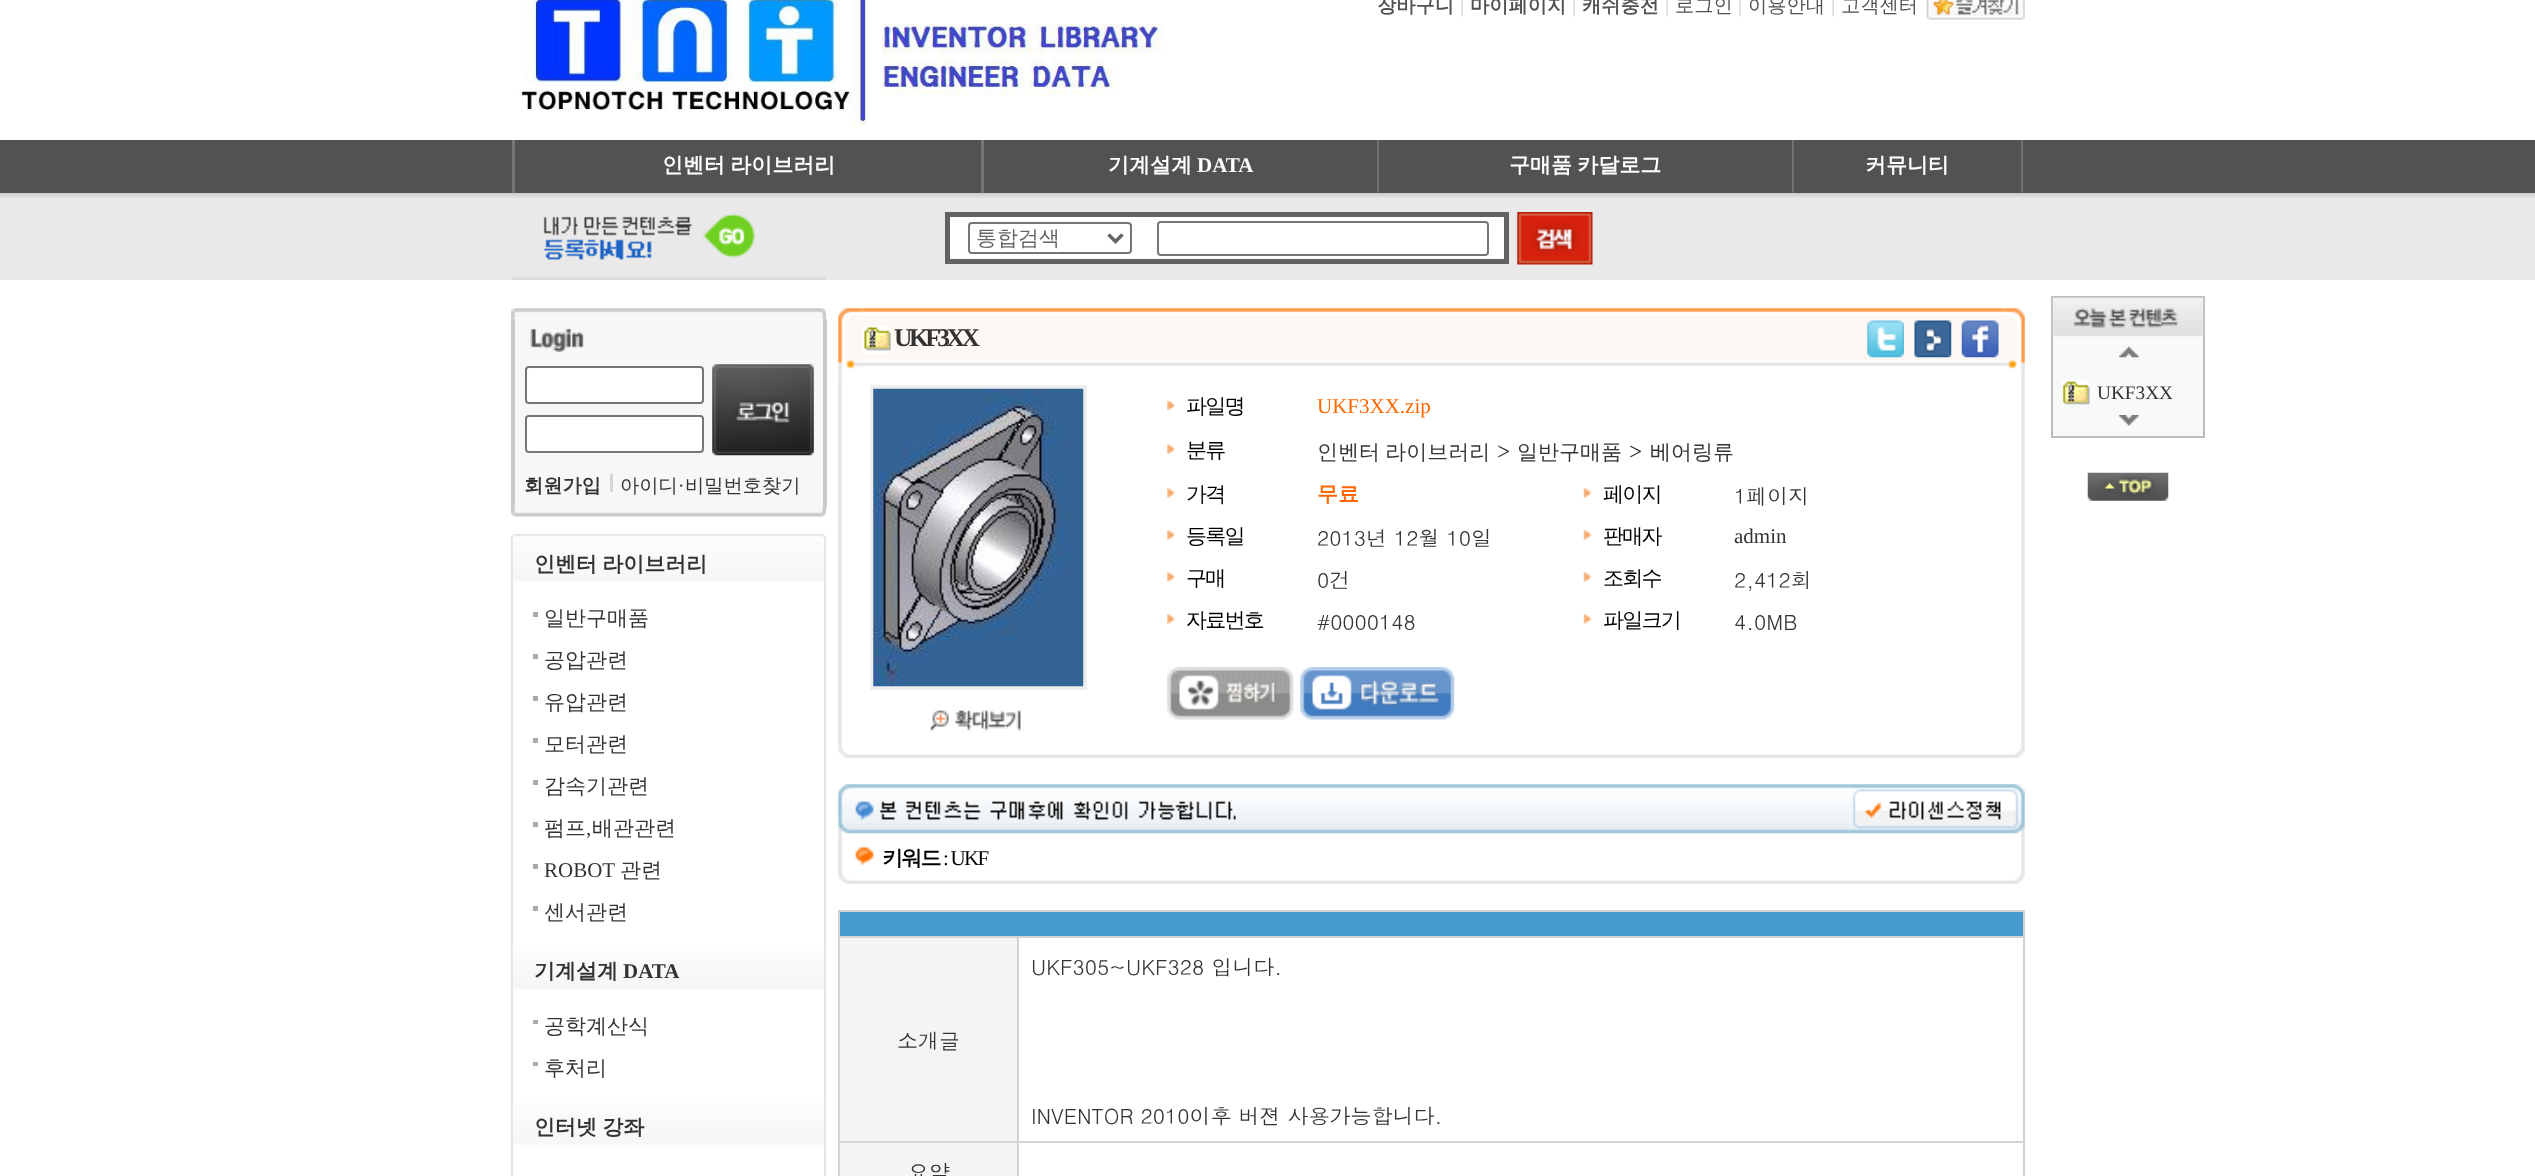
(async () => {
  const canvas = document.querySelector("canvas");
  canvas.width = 2535;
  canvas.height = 1176;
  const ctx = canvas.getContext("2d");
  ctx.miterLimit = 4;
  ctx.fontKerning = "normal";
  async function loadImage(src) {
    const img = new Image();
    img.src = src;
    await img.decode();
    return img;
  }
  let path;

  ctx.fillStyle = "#ffffff";
  ctx.fillRect(0, 0, 2535, 1176);
  ctx.drawImage(await loadImage("img/1.png"), 519, 0, 645, 125);
  ctx.drawImage(await loadImage("img/2.png"), 1926, 0, 99, 20);
  for (const [x, y, w, h, color] of [
    [0, 140, 2535, 53, "#525252"],
    [512, 140, 3, 53, "#757575"],
    [981, 140, 3, 53, "#757575"],
  ]) {
    ctx.fillStyle = color;
    ctx.fillRect(x, y, w, h);
  }
  ctx.drawImage(await loadImage("img/3.png"), 1377, 140, 2, 53);
  ctx.drawImage(await loadImage("img/4.png"), 1792, 140, 2, 53);
  ctx.drawImage(await loadImage("img/3.png"), 2021, 140, 2, 53);
  for (const [x, y, w, h, color] of [
    [0, 193, 2535, 1, "#cbcbcb"],
    [0, 194, 2535, 2, "#d5d5d5"],
    [0, 196, 2535, 2, "#e0e0e0"],
    [0, 198, 2535, 82, "#e9e9e9"],
  ]) {
    ctx.fillStyle = color;
    ctx.fillRect(x, y, w, h);
  }
  ctx.drawImage(await loadImage("img/5.png"), 511, 213, 315, 65);
  ctx.fillStyle = "#ffffff";
  ctx.beginPath();
  ctx.rect(947.5, 214.5, 559, 47);
  ctx.fill();
  ctx.strokeStyle = "#626262";
  ctx.lineWidth = 5;
  ctx.stroke();
  ctx.beginPath();
  ctx.roundRect(969, 223, 162, 30, 3);
  ctx.strokeStyle = "#767676";
  ctx.lineWidth = 2;
  ctx.stroke();
  path = new Path2D("M1108.5 234.5L1115.5 241.5L1122.5 234.5");
  ctx.strokeStyle = "#666666";
  ctx.lineWidth = 3.5;
  ctx.stroke(path);
  ctx.beginPath();
  ctx.roundRect(1158, 222, 330, 33, 3);
  ctx.strokeStyle = "#767676";
  ctx.lineWidth = 2;
  ctx.stroke();
  ctx.drawImage(await loadImage("img/6.png"), 1517, 212, 76, 53);
  ctx.fillStyle = "#dedede";
  ctx.fillRect(511, 278, 315, 2);
  ctx.drawImage(await loadImage("img/7.png"), 511, 308, 315, 11);
  for (const [x, y, w, h, color] of [
    [515, 319, 308, 189, "#f7f7f7"],
    [823, 319, 4, 189, "#cacaca"],
    [511, 319, 4, 189, "#cacaca"],
  ]) {
    ctx.fillStyle = color;
    ctx.fillRect(x, y, w, h);
  }
  ctx.drawImage(await loadImage("img/8.png"), 530, 328, 54, 24);
  ctx.fillStyle = "#ffffff";
  ctx.beginPath();
  ctx.roundRect(526, 367, 177, 36, 3);
  ctx.fill();
  ctx.stroke();
  ctx.drawImage(await loadImage("img/9.png"), 712, 364, 102, 92);
  ctx.beginPath();
  ctx.roundRect(526, 416, 177, 36, 3);
  ctx.fill();
  ctx.stroke();
  ctx.fillStyle = "#d6d6d6";
  ctx.fillRect(610, 474, 3, 18);
  ctx.drawImage(await loadImage("img/10.png"), 511, 507, 315, 10);
  ctx.fillStyle = "#e3e3e3";
  ctx.fillRect(824, 537, 2, 639);
  ctx.fillRect(511, 537, 2, 639);
  ctx.drawImage(await loadImage("img/11.png"), 511, 534, 315, 4);
  ctx.drawImage(await loadImage("img/12.png"), 512, 538, 313, 43);
  for (const [x, y, w, h, color] of [
    [533, 612, 5, 5, "#aaaaaa"],
    [533, 654, 5, 5, "#aaaaaa"],
    [533, 696, 5, 5, "#aaaaaa"],
    [533, 738, 5, 5, "#aaaaaa"],
    [533, 780, 5, 5, "#aaaaaa"],
    [533, 822, 5, 5, "#aaaaaa"],
    [533, 864, 5, 5, "#aaaaaa"],
    [533, 906, 5, 5, "#aaaaaa"],
  ]) {
    ctx.fillStyle = color;
    ctx.fillRect(x, y, w, h);
  }
  ctx.drawImage(await loadImage("img/13.png"), 512, 945, 313, 44);
  ctx.fillRect(533, 1020, 5, 4);
  ctx.fillRect(533, 1062, 5, 4);
  ctx.drawImage(await loadImage("img/14.png"), 512, 1101, 313, 44);
  ctx.drawImage(await loadImage("img/16.png"), 862, 308, 510, 59);
  ctx.drawImage(await loadImage("img/23.png"), 838, 369, 1187, 10);
  ctx.drawImage(await loadImage("img/15.png"), 838, 308, 25, 62);
  ctx.drawImage(await loadImage("img/17.png"), 863, 326, 28, 28);
  ctx.drawImage(await loadImage("img/18.png"), 1372, 308, 632, 59);
  ctx.drawImage(await loadImage("img/19.png"), 1867, 320, 37, 38);
  ctx.drawImage(await loadImage("img/20.png"), 1914, 320, 38, 38);
  ctx.drawImage(await loadImage("img/21.png"), 1961, 320, 38, 38);
  ctx.drawImage(await loadImage("img/22.png"), 2003, 308, 22, 62);
  ctx.drawImage(await loadImage("img/24.png"), 838, 378, 1187, 368);
  ctx.fillStyle = "#efefef";
  ctx.fillRect(870, 385, 217, 305);
  ctx.drawImage(await loadImage("img/25.png"), 873, 388, 211, 299);
  ctx.drawImage(await loadImage("img/26.png"), 930, 710, 91, 21);
  ctx.drawImage(await loadImage("img/27.png"), 1167, 401, 8, 10);
  ctx.drawImage(await loadImage("img/28.png"), 1167, 444, 8, 10);
  ctx.drawImage(await loadImage("img/29.png"), 1167, 488, 8, 10);
  ctx.drawImage(await loadImage("img/30.png"), 1583, 488, 9, 10);
  ctx.drawImage(await loadImage("img/29.png"), 1167, 530, 8, 10);
  ctx.drawImage(await loadImage("img/30.png"), 1583, 530, 9, 10);
  ctx.drawImage(await loadImage("img/29.png"), 1167, 572, 8, 10);
  ctx.drawImage(await loadImage("img/30.png"), 1583, 572, 9, 10);
  ctx.drawImage(await loadImage("img/29.png"), 1167, 614, 8, 10);
  ctx.drawImage(await loadImage("img/30.png"), 1583, 614, 9, 10);
  ctx.drawImage(await loadImage("img/31.png"), 1167, 667, 127, 53);
  ctx.drawImage(await loadImage("img/32.png"), 1300, 667, 155, 53);
  ctx.drawImage(await loadImage("img/33.png"), 838, 746, 1187, 12);
  ctx.drawImage(await loadImage("img/36.png"), 838, 833, 1187, 51);
  ctx.drawImage(await loadImage("img/34.png"), 838, 784, 1012, 50);
  ctx.drawImage(await loadImage("img/35.png"), 1849, 784, 176, 50);
  for (const [x, y, w, h, color] of [
    [838, 910, 1187, 266, "#d4d4d4"],
    [840, 912, 1183, 24, "#459acf"],
    [840, 938, 177, 203, "#f4f4f4"],
    [1019, 938, 1004, 203, "#ffffff"],
    [840, 1143, 177, 33, "#f4f4f4"],
    [1019, 1143, 1004, 33, "#ffffff"],
    [2053, 336, 150, 100, "#f8f9f9"],
  ]) {
    ctx.fillStyle = color;
    ctx.fillRect(x, y, w, h);
  }
  ctx.strokeStyle = "#bdbdbd";
  ctx.strokeRect(2052, 297, 152, 140);
  ctx.drawImage(await loadImage("img/37.png"), 2052, 297, 152, 40);
  ctx.drawImage(await loadImage("img/38.png"), 2119, 346, 20, 12);
  ctx.drawImage(await loadImage("img/39.png"), 2062, 380, 28, 25);
  ctx.drawImage(await loadImage("img/40.png"), 2119, 415, 20, 11);
  ctx.drawImage(await loadImage("img/41.png"), 2087, 472, 82, 29);
  ctx.font = "bold 19.25px WenQuanYi Zen Hei";
  ctx.fillStyle = "#525252";
  ctx.fillText("장바구니", 1377, 12);
  ctx.font = "21px Liberation Serif";
  ctx.fillStyle = "#cccccc";
  ctx.fillText("|", 1460, 12);
  ctx.font = "bold 19.25px WenQuanYi Zen Hei";
  ctx.fillStyle = "#525252";
  ctx.fillText("마이페이지", 1470, 12);
  ctx.font = "21px Liberation Serif";
  ctx.fillStyle = "#cccccc";
  ctx.fillText("|", 1572, 12);
  ctx.font = "bold 19.25px WenQuanYi Zen Hei";
  ctx.fillStyle = "#525252";
  ctx.fillText("캐쉬충전", 1582, 12);
  ctx.font = "21px Liberation Serif";
  ctx.fillStyle = "#cccccc";
  ctx.fillText("|", 1665, 12);
  ctx.font = "500 19.25px WenQuanYi Zen Hei";
  ctx.fillStyle = "#525252";
  ctx.fillText("로그인", 1675, 12);
  ctx.font = "21px Liberation Serif";
  ctx.fillStyle = "#cccccc";
  ctx.fillText("|", 1738, 12);
  ctx.font = "500 19.25px WenQuanYi Zen Hei";
  ctx.fillStyle = "#525252";
  ctx.fillText("이용안내", 1748, 12);
  ctx.font = "21px Liberation Serif";
  ctx.fillStyle = "#cccccc";
  ctx.fillText("|", 1831, 12);
  ctx.font = "500 19.25px WenQuanYi Zen Hei";
  ctx.fillStyle = "#525252";
  ctx.fillText("고객센터", 1841, 12);
  ctx.wordSpacing = "-1px";
  ctx.font = "bold 21px WenQuanYi Zen Hei";
  ctx.fillStyle = "#ffffff";
  ctx.fillText("인벤터 라이브러리", 662, 172);
  ctx.wordSpacing = "0px";
  ctx.fillText("기계설계", 1108, 172);
  ctx.font = "bold 21px Liberation Serif";
  ctx.fillText("DATA", 1197, 172);
  ctx.wordSpacing = "-1px";
  ctx.font = "bold 21px WenQuanYi Zen Hei";
  ctx.fillText("구매품 카달로그", 1509, 172);
  ctx.wordSpacing = "0px";
  ctx.fillText("커뮤니티", 1865, 172);
  ctx.font = "500 21px WenQuanYi Zen Hei";
  ctx.fillStyle = "#666666";
  ctx.fillText("통합검색", 976, 245);
  ctx.font = "bold 19.25px WenQuanYi Zen Hei";
  ctx.fillStyle = "#333333";
  ctx.fillText("회원가입", 524, 492);
  ctx.font = "500 19.25px WenQuanYi Zen Hei";
  ctx.fillText("아이디", 620, 492);
  ctx.font = "19.25px Liberation Serif";
  ctx.fillText("·", 678, 492);
  ctx.font = "500 19.25px WenQuanYi Zen Hei";
  ctx.fillText("비밀번호찾기", 685, 492);
  ctx.wordSpacing = "-1px";
  ctx.font = "bold 21px WenQuanYi Zen Hei";
  ctx.fillText("인벤터 라이브러리", 534, 571);
  ctx.wordSpacing = "0px";
  ctx.font = "500 21px WenQuanYi Zen Hei";
  for (const [text, x, y] of [
    ["일반구매품", 544, 625],
    ["공압관련", 544, 667],
    ["유압관련", 544, 709],
    ["모터관련", 544, 751],
    ["감속기관련", 544, 793],
    ["펌프", 544, 835],
  ]) {
    ctx.fillText(text, x, y);
  }
  ctx.font = "21px Liberation Serif";
  ctx.fillText(",", 586, 835);
  ctx.font = "500 21px WenQuanYi Zen Hei";
  ctx.fillText("배관관련", 592, 835);
  ctx.font = "21px Liberation Serif";
  ctx.fillText("ROBOT", 544, 877);
  ctx.font = "500 21px WenQuanYi Zen Hei";
  ctx.fillText("관련", 620, 877);
  ctx.fillText("센서관련", 544, 919);
  ctx.font = "bold 21px WenQuanYi Zen Hei";
  ctx.fillText("기계설계", 534, 978);
  ctx.font = "bold 21px Liberation Serif";
  ctx.fillText("DATA", 623, 978);
  ctx.font = "500 21px WenQuanYi Zen Hei";
  ctx.fillText("공학계산식", 544, 1033);
  ctx.fillText("후처리", 544, 1075);
  ctx.wordSpacing = "-1px";
  ctx.font = "bold 21px WenQuanYi Zen Hei";
  ctx.fillText("인터넷 강좌", 534, 1134);
  ctx.letterSpacing = "-3.5px";
  ctx.wordSpacing = "0px";
  ctx.font = "bold 25.5px Liberation Serif";
  ctx.fillText("UKF3XX", 894, 346);
  ctx.letterSpacing = "-1.75px";
  ctx.font = "500 21px WenQuanYi Zen Hei";
  ctx.fillStyle = "#000000";
  ctx.fillText("파일명", 1186, 413);
  ctx.letterSpacing = "0px";
  ctx.font = "21px Liberation Serif";
  ctx.fillStyle = "#ff6600";
  ctx.fillText("UKF3XX.zip", 1317, 413);
  ctx.letterSpacing = "-1.75px";
  ctx.font = "500 21px WenQuanYi Zen Hei";
  ctx.fillStyle = "#000000";
  ctx.fillText("분류", 1186, 457);
  ctx.letterSpacing = "0px";
  ctx.wordSpacing = "-1px";
  ctx.fillStyle = "#333333";
  ctx.fillText("인벤터 라이브러리", 1317, 459);
  ctx.wordSpacing = "0px";
  ctx.font = "21px Dotum";
  ctx.fillText(">", 1497, 459);
  ctx.font = "500 21px WenQuanYi Zen Hei";
  ctx.fillText("일반구매품", 1517, 459);
  ctx.font = "21px Dotum";
  ctx.fillText(">", 1629, 459);
  ctx.font = "500 21px WenQuanYi Zen Hei";
  ctx.fillText("베어링류", 1650, 459);
  ctx.letterSpacing = "-1.75px";
  ctx.fillStyle = "#000000";
  ctx.fillText("가격", 1186, 501);
  ctx.letterSpacing = "0px";
  ctx.font = "bold 21px WenQuanYi Zen Hei";
  ctx.fillStyle = "#ff6600";
  ctx.fillText("무료", 1317, 501);
  ctx.letterSpacing = "-1.75px";
  ctx.font = "500 21px WenQuanYi Zen Hei";
  ctx.fillStyle = "#000000";
  ctx.fillText("페이지", 1603, 501);
  ctx.letterSpacing = "0px";
  ctx.font = "21px Dotum";
  ctx.fillStyle = "#333333";
  ctx.fillText("1페이지", 1734, 504);
  ctx.letterSpacing = "-1.75px";
  ctx.font = "500 21px WenQuanYi Zen Hei";
  ctx.fillStyle = "#000000";
  ctx.fillText("등록일", 1186, 543);
  ctx.letterSpacing = "0px";
  ctx.font = "21px Dotum";
  ctx.fillStyle = "#333333";
  ctx.fillText("2013년 12월 10일", 1317, 546);
  ctx.letterSpacing = "-1.75px";
  ctx.font = "500 21px WenQuanYi Zen Hei";
  ctx.fillStyle = "#000000";
  ctx.fillText("판매자", 1603, 543);
  ctx.letterSpacing = "0px";
  ctx.font = "21px Liberation Serif";
  ctx.fillStyle = "#333333";
  ctx.fillText("admin", 1734, 543);
  ctx.letterSpacing = "-1.75px";
  ctx.font = "500 21px WenQuanYi Zen Hei";
  ctx.fillStyle = "#000000";
  ctx.fillText("구매", 1186, 585);
  ctx.letterSpacing = "0px";
  ctx.font = "21px Dotum";
  ctx.fillStyle = "#333333";
  ctx.fillText("0건", 1317, 588);
  ctx.letterSpacing = "-1.75px";
  ctx.font = "500 21px WenQuanYi Zen Hei";
  ctx.fillStyle = "#000000";
  ctx.fillText("조회수", 1603, 585);
  ctx.letterSpacing = "0px";
  ctx.font = "21px Dotum";
  ctx.fillStyle = "#333333";
  ctx.fillText("2,412회", 1734, 588);
  ctx.letterSpacing = "-1.75px";
  ctx.font = "500 21px WenQuanYi Zen Hei";
  ctx.fillStyle = "#000000";
  ctx.fillText("자료번호", 1186, 627);
  ctx.letterSpacing = "0px";
  ctx.font = "21px Dotum";
  ctx.fillStyle = "#333333";
  ctx.fillText("#0000148", 1317, 630);
  ctx.letterSpacing = "-1.75px";
  ctx.font = "500 21px WenQuanYi Zen Hei";
  ctx.fillStyle = "#000000";
  ctx.fillText("파일크기", 1603, 627);
  ctx.letterSpacing = "0px";
  ctx.font = "21px Dotum";
  ctx.fillStyle = "#333333";
  ctx.fillText("4.0MB", 1734, 630);
  ctx.letterSpacing = "-1.75px";
  ctx.font = "bold 21px WenQuanYi Zen Hei";
  ctx.fillStyle = "#000000";
  ctx.fillText("키워드", 882, 865);
  ctx.font = "21px Liberation Serif";
  ctx.fillText(": UKF", 943, 865);
  ctx.letterSpacing = "0px";
  ctx.font = "21px Dotum";
  ctx.fillStyle = "#333333";
  for (const [text, x, y] of [
    ["소개글", 897, 1049],
    ["UKF305~UKF328 입니다.", 1031, 975],
    ["INVENTOR 2010이후 버젼 사용가능합니다.", 1031, 1124],
    ["요약", 908, 1180],
  ]) {
    ctx.fillText(text, x, y);
  }
  ctx.font = "19.25px Liberation Serif";
  ctx.fillText("UKF3XX", 2097, 399);
})();
